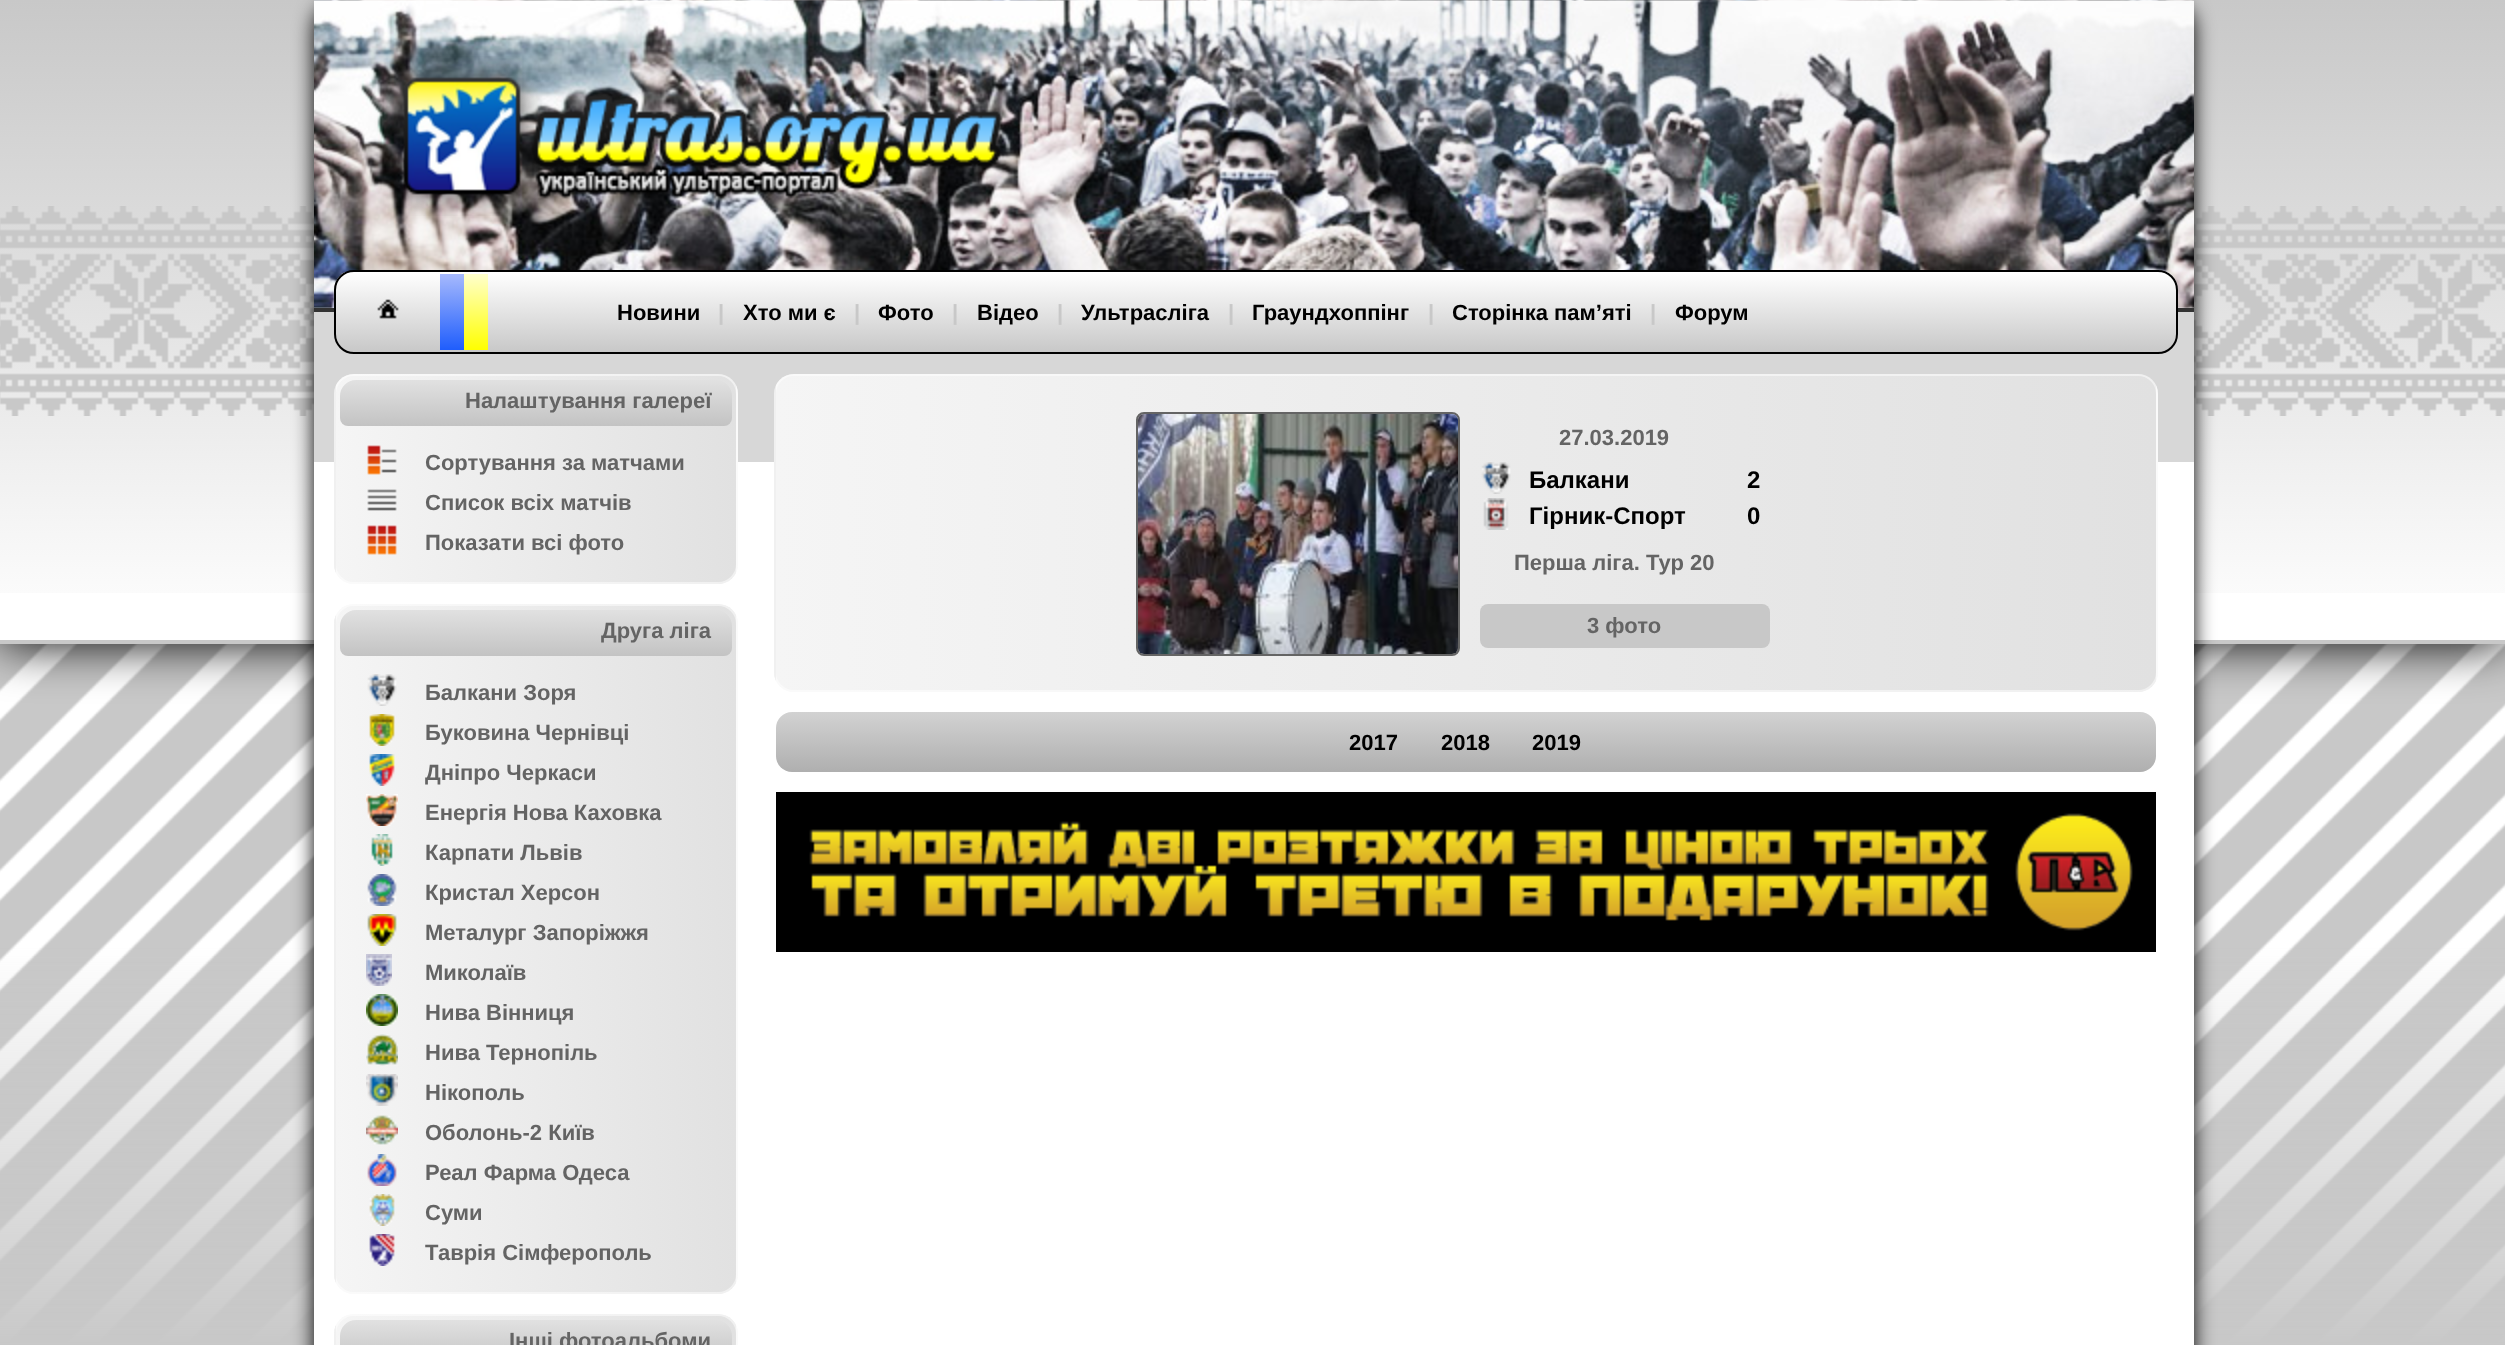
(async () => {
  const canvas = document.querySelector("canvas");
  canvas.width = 2505;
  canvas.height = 1345;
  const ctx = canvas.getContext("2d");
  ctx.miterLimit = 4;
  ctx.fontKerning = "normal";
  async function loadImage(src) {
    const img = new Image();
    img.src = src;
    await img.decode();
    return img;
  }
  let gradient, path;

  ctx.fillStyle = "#ffffff";
  ctx.fillRect(0, 0, 2505, 1345);
  ctx.drawImage(await loadImage("img/1.png"), 0, 644, 2505, 701);
  ctx.fillStyle = "#000000";
  ctx.filter = "blur(25px)";
  ctx.beginPath();
  ctx.rect(0, 0, 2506, 644);
  ctx.fill();
  ctx.filter = "none";
  ctx.fillStyle = "#ffffff";
  ctx.fillRect(0, 593, 2505, 47);
  ctx.drawImage(await loadImage("img/2.png"), 0, 0, 2505, 593);
  ctx.fillStyle = "#c8c8c8";
  ctx.fillRect(0, 640, 2505, 4);
  ctx.fillStyle = "#000000";
  ctx.filter = "blur(10px)";
  ctx.beginPath();
  ctx.roundRect(314, 0, 1880, 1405, 30);
  ctx.fill();
  ctx.filter = "none";
  ctx.fillStyle = "#ffffff";
  ctx.fillRect(314, 462, 1880, 883);
  ctx.drawImage(await loadImage("img/3.png"), 314, 0, 1880, 308);
  ctx.fillStyle = "#333333";
  ctx.fillRect(314, 308, 1880, 4);
  ctx.drawImage(await loadImage("img/4.png"), 383, 56, 620, 160);
  ctx.fillStyle = "#d7d7d7";
  ctx.fillRect(314, 312, 1880, 150);
  ctx.save();
  ctx.beginPath();
  ctx.roundRect(334, 270, 1844, 84, 20);
  ctx.clip();
  gradient = ctx.createLinearGradient(1256, 352, 1256, 272);
  gradient.addColorStop(0, "#c8c8c8");
  gradient.addColorStop(1, "#ffffff");
  ctx.fillStyle = gradient;
  ctx.fillRect(334, 272, 1844, 80);
  ctx.restore();
  ctx.beginPath();
  ctx.roundRect(335, 271, 1842, 82, 19);
  ctx.strokeStyle = "#000000";
  ctx.lineWidth = 2;
  ctx.stroke();
  ctx.drawImage(await loadImage("img/5.png"), 377, 299, 22, 20);
  gradient = ctx.createLinearGradient(452, 274, 452, 350);
  gradient.addColorStop(0, "#a6b9fd");
  gradient.addColorStop(1, "#1f5dfc");
  ctx.fillStyle = gradient;
  ctx.fillRect(440, 274, 24, 76);
  gradient = ctx.createLinearGradient(476, 274, 476, 350);
  gradient.addColorStop(0, "#ffffcc");
  gradient.addColorStop(1, "#ffff00");
  ctx.fillStyle = gradient;
  ctx.fillRect(464, 274, 24, 76);
  ctx.save();
  ctx.beginPath();
  ctx.roundRect(334, 374, 404, 210, 20);
  ctx.clip();
  gradient = ctx.createLinearGradient(336, 479, -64, 479);
  gradient.addColorStop(0, "#e1e1e1");
  gradient.addColorStop(1, "#f5f5f5");
  ctx.fillStyle = gradient;
  ctx.fillRect(334, 385, 2, 188);
  gradient = ctx.createLinearGradient(736, 479, 336, 479);
  gradient.addColorStop(0, "#e1e1e1");
  gradient.addColorStop(1, "#f5f5f5");
  ctx.fillStyle = gradient;
  ctx.fillRect(336, 374, 400, 210);
  gradient = ctx.createLinearGradient(1136, 479, 736, 479);
  gradient.addColorStop(0, "#e1e1e1");
  gradient.addColorStop(1, "#f5f5f5");
  ctx.fillStyle = gradient;
  ctx.fillRect(736, 385, 2, 188);
  ctx.restore();
  ctx.beginPath();
  ctx.roundRect(335, 375, 402, 208, 19);
  ctx.strokeStyle = "rgba(255, 255, 255, 0.5)";
  ctx.stroke();
  gradient = ctx.createLinearGradient(536, 426, 536, 380);
  gradient.addColorStop(0, "#c3c3c3");
  gradient.addColorStop(1, "#e1e1e1");
  ctx.fillStyle = gradient;
  ctx.beginPath();
  ctx.roundRect(340, 380, 392, 46, [16, 16, 8, 8]);
  ctx.fill();
  ctx.drawImage(await loadImage("img/6.png"), 367, 445, 30, 30);
  ctx.drawImage(await loadImage("img/7.png"), 367, 489, 30, 22);
  ctx.drawImage(await loadImage("img/8.png"), 367, 525, 30, 30);
  ctx.save();
  ctx.beginPath();
  ctx.roundRect(334, 604, 404, 690, 20);
  ctx.clip();
  gradient = ctx.createLinearGradient(336, 949, -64, 949);
  gradient.addColorStop(0, "#e1e1e1");
  gradient.addColorStop(1, "#f5f5f5");
  ctx.fillStyle = gradient;
  ctx.fillRect(334, 615, 2, 668);
  gradient = ctx.createLinearGradient(736, 949, 336, 949);
  gradient.addColorStop(0, "#e1e1e1");
  gradient.addColorStop(1, "#f5f5f5");
  ctx.fillStyle = gradient;
  ctx.fillRect(336, 604, 400, 690);
  gradient = ctx.createLinearGradient(1136, 949, 736, 949);
  gradient.addColorStop(0, "#e1e1e1");
  gradient.addColorStop(1, "#f5f5f5");
  ctx.fillStyle = gradient;
  ctx.fillRect(736, 615, 2, 668);
  ctx.restore();
  ctx.beginPath();
  ctx.roundRect(335, 605, 402, 688, 19);
  ctx.stroke();
  gradient = ctx.createLinearGradient(536, 656, 536, 610);
  gradient.addColorStop(0, "#c3c3c3");
  gradient.addColorStop(1, "#e1e1e1");
  ctx.fillStyle = gradient;
  ctx.beginPath();
  ctx.roundRect(340, 610, 392, 46, [16, 16, 8, 8]);
  ctx.fill();
  ctx.drawImage(await loadImage("img/9.png"), 367, 674, 30, 32);
  ctx.drawImage(await loadImage("img/10.png"), 369, 714, 26, 32);
  ctx.drawImage(await loadImage("img/11.png"), 369, 754, 26, 32);
  ctx.drawImage(await loadImage("img/12.png"), 366, 794, 32, 32);
  ctx.drawImage(await loadImage("img/13.png"), 371, 834, 22, 32);
  ctx.drawImage(await loadImage("img/14.png"), 367, 874, 30, 32);
  ctx.drawImage(await loadImage("img/15.png"), 367, 914, 30, 32);
  ctx.drawImage(await loadImage("img/16.png"), 366, 954, 26, 32);
  ctx.drawImage(await loadImage("img/17.png"), 366, 994, 32, 32);
  ctx.drawImage(await loadImage("img/18.png"), 366, 1034, 32, 32);
  ctx.drawImage(await loadImage("img/19.png"), 366, 1074, 32, 32);
  ctx.drawImage(await loadImage("img/20.png"), 366, 1115, 32, 30);
  ctx.drawImage(await loadImage("img/21.png"), 367, 1154, 30, 32);
  ctx.drawImage(await loadImage("img/22.png"), 369, 1194, 26, 32);
  ctx.drawImage(await loadImage("img/23.png"), 369, 1234, 26, 32);
  ctx.save();
  ctx.beginPath();
  ctx.roundRect(334, 1314, 404, 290, 20);
  ctx.clip();
  gradient = ctx.createLinearGradient(336, 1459, -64, 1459);
  gradient.addColorStop(0, "#e1e1e1");
  gradient.addColorStop(1, "#f5f5f5");
  ctx.fillStyle = gradient;
  ctx.fillRect(334, 1325, 2, 20);
  gradient = ctx.createLinearGradient(736, 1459, 336, 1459);
  gradient.addColorStop(0, "#e1e1e1");
  gradient.addColorStop(1, "#f5f5f5");
  ctx.fillStyle = gradient;
  ctx.fillRect(336, 1314, 400, 31);
  gradient = ctx.createLinearGradient(1136, 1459, 736, 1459);
  gradient.addColorStop(0, "#e1e1e1");
  gradient.addColorStop(1, "#f5f5f5");
  ctx.fillStyle = gradient;
  ctx.fillRect(736, 1325, 2, 20);
  ctx.restore();
  ctx.beginPath();
  ctx.roundRect(335, 1315, 402, 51, 19);
  ctx.stroke();
  gradient = ctx.createLinearGradient(536, 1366, 536, 1320);
  gradient.addColorStop(0, "#c3c3c3");
  gradient.addColorStop(1, "#e1e1e1");
  ctx.fillStyle = gradient;
  path = new Path2D("M356 1320H716C725 1320 732 1327 732 1336V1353C732 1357.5 728.5 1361 724 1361H348C343.5 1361 340 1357.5 340 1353V1336C340 1327 347 1320 356 1320Z");
  ctx.fill(path);
  ctx.save();
  ctx.beginPath();
  ctx.roundRect(774, 374, 1384, 318, 20);
  ctx.clip();
  gradient = ctx.createLinearGradient(776, 533, -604, 533);
  gradient.addColorStop(0, "#e1e1e1");
  gradient.addColorStop(1, "#f5f5f5");
  ctx.fillStyle = gradient;
  ctx.fillRect(774, 385, 2, 296);
  gradient = ctx.createLinearGradient(2156, 533, 776, 533);
  gradient.addColorStop(0, "#e1e1e1");
  gradient.addColorStop(1, "#f5f5f5");
  ctx.fillStyle = gradient;
  ctx.fillRect(776, 374, 1380, 318);
  gradient = ctx.createLinearGradient(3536, 533, 2156, 533);
  gradient.addColorStop(0, "#e1e1e1");
  gradient.addColorStop(1, "#f5f5f5");
  ctx.fillStyle = gradient;
  ctx.fillRect(2156, 385, 2, 296);
  ctx.restore();
  ctx.beginPath();
  ctx.roundRect(775, 375, 1382, 316, 19);
  ctx.stroke();
  ctx.beginPath();
  ctx.roundRect(1137, 413, 322, 242, 7);
  ctx.strokeStyle = "#646464";
  ctx.stroke();
  ctx.drawImage(await loadImage("img/24.png"), 1138, 414, 320, 240);
  ctx.drawImage(await loadImage("img/25.png"), 1481, 462, 30, 32);
  ctx.drawImage(await loadImage("img/26.png"), 1483, 498, 26, 32);
  ctx.fillStyle = "#c8c8c8";
  ctx.beginPath();
  ctx.roundRect(1480, 604, 290, 44, 8);
  ctx.fill();
  gradient = ctx.createLinearGradient(1466, 772, 1466, 712);
  gradient.addColorStop(0, "#afafaf");
  gradient.addColorStop(1, "#d2d2d2");
  ctx.fillStyle = gradient;
  ctx.beginPath();
  ctx.roundRect(776, 712, 1380, 60, 16);
  ctx.fill();
  ctx.drawImage(await loadImage("img/27.png"), 776, 792, 1380, 160);
  ctx.font = "bold 22px Liberation Sans";
  ctx.fillStyle = "#000000";
  ctx.fillText("Новини", 617, 320);
  ctx.fillStyle = "#c8c8c8";
  ctx.fillText("|", 718, 320);
  ctx.fillStyle = "#000000";
  ctx.fillText("Хто ми є", 743, 320);
  ctx.fillStyle = "#c8c8c8";
  ctx.fillText("|", 854, 320);
  ctx.fillStyle = "#000000";
  ctx.fillText("Фото", 878, 320);
  ctx.fillStyle = "#c8c8c8";
  ctx.fillText("|", 952, 320);
  ctx.fillStyle = "#000000";
  ctx.fillText("Відео", 977, 320);
  ctx.fillStyle = "#c8c8c8";
  ctx.fillText("|", 1057, 320);
  ctx.fillStyle = "#000000";
  ctx.fillText("Ультрасліга", 1081, 320);
  ctx.fillStyle = "#c8c8c8";
  ctx.fillText("|", 1228, 320);
  ctx.fillStyle = "#000000";
  ctx.fillText("Граундхоппінг", 1252, 320);
  ctx.fillStyle = "#c8c8c8";
  ctx.fillText("|", 1428, 320);
  ctx.fillStyle = "#000000";
  ctx.fillText("Сторінка пам’яті", 1452, 320);
  ctx.fillStyle = "#c8c8c8";
  ctx.fillText("|", 1650, 320);
  ctx.fillStyle = "#000000";
  ctx.fillText("Форум", 1675, 320);
  ctx.fillStyle = "#646464";
  for (const [text, x, y] of [
    ["Налаштування галереї", 465, 408],
    ["Сортування за матчами", 425, 470],
    ["Список всіх матчів", 425, 510],
    ["Показати всі фото", 425, 550],
    ["Друга ліга", 601, 638],
    ["Балкани Зоря", 425, 700],
    ["Буковина Чернівці", 425, 740],
    ["Дніпро Черкаси", 425, 780],
    ["Енергія Нова Каховка", 425, 820],
    ["Карпати Львів", 425, 860],
    ["Кристал Херсон", 425, 900],
    ["Металург Запоріжжя", 425, 940],
    ["Миколаїв", 425, 980],
    ["Нива Вінниця", 425, 1020],
    ["Нива Тернопіль", 425, 1060],
    ["Нікополь", 425, 1100],
    ["Оболонь-2 Київ", 425, 1140],
    ["Реал Фарма Одеса", 425, 1180],
    ["Суми", 425, 1220],
    ["Таврія Сімферополь", 425, 1260],
    ["Інші фотоальбоми", 509, 1348],
    ["27.03.2019", 1559, 445],
  ]) {
    ctx.fillText(text, x, y);
  }
  ctx.font = "bold 24px Liberation Sans";
  ctx.fillStyle = "#000000";
  for (const [text, x, y] of [
    ["Балкани", 1529, 488],
    ["2", 1747, 488],
    ["Гірник-Спорт", 1529, 524],
    ["0", 1747, 524],
  ]) {
    ctx.fillText(text, x, y);
  }
  ctx.font = "bold 22px Liberation Sans";
  ctx.fillStyle = "#646464";
  ctx.fillText("Перша ліга. Тур 20", 1514, 570);
  ctx.fillText("3 фото", 1587, 633);
  ctx.fillStyle = "#000000";
  for (const [text, x, y] of [
    ["2017", 1349, 750],
    ["2018", 1441, 750],
    ["2019", 1532, 750],
  ]) {
    ctx.fillText(text, x, y);
  }
})();
